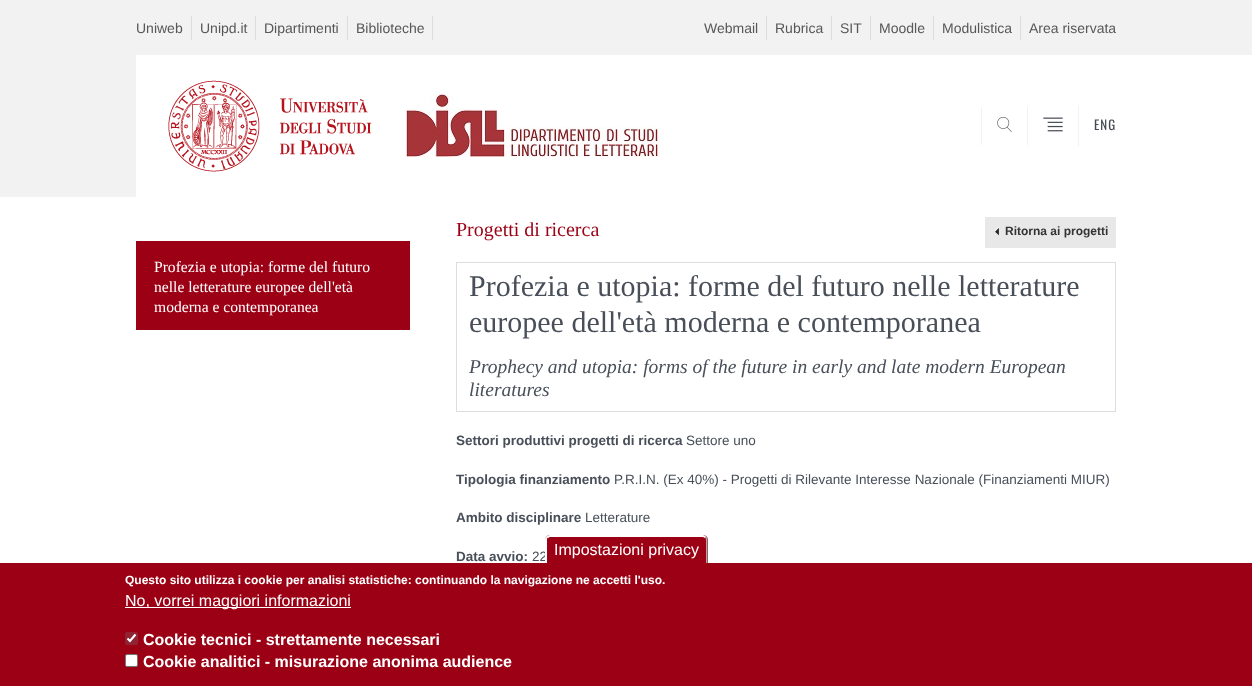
(async () => {
  const canvas = document.querySelector("canvas");
  canvas.width = 1252;
  canvas.height = 686;
  const ctx = canvas.getContext("2d");
  ctx.miterLimit = 4;
  ctx.fontKerning = "normal";
  async function loadImage(src) {
    const img = new Image();
    img.src = src;
    await img.decode();
    return img;
  }
  let gradient, path;

  ctx.fillStyle = "#ffffff";
  ctx.fillRect(0, 0, 1252, 686);
  for (const [x, y, w, h, color] of [
    [0, 0, 1252, 197, "#f2f2f2"],
    [191, 16, 1, 24, "#dcdcdc"],
    [255, 16, 1, 24, "#dcdcdc"],
    [347, 16, 1, 24, "#dcdcdc"],
    [432, 16, 1, 24, "#dcdcdc"],
    [766, 16, 1, 24, "#dcdcdc"],
    [831, 16, 1, 24, "#dcdcdc"],
    [870, 16, 1, 24, "#dcdcdc"],
    [933, 16, 1, 24, "#dcdcdc"],
    [1020, 16, 1, 24, "#dcdcdc"],
  ]) {
    ctx.fillStyle = color;
    ctx.fillRect(x, y, w, h);
  }
  gradient = ctx.createLinearGradient(0, 126, 1252, 126);
  gradient.addColorStop(0, "rgba(155, 0, 20, 0)");
  gradient.addColorStop(0.5, "rgba(255, 255, 255, 0)");
  gradient.addColorStop(0.51, "#ffffff");
  gradient.addColorStop(1, "#ffffff");
  ctx.fillStyle = gradient;
  ctx.fillRect(1116, 55, 136, 142);
  ctx.fillStyle = "#ffffff";
  ctx.fillRect(136, 55, 980, 142);
  ctx.drawImage(await loadImage("img/1.png"), 168, 80, 204, 92);
  ctx.drawImage(await loadImage("img/2.png"), 406, 94, 252, 63);
  ctx.fillStyle = "#f2f2f2";
  ctx.fillRect(981, 107, 1, 38);
  ctx.drawImage(await loadImage("img/3.png"), 997, 116, 15, 16);
  ctx.fillRect(1027, 107, 1, 38);
  ctx.drawImage(await loadImage("img/4.png"), 1043, 117, 20, 15);
  for (const [x, y, w, h, color] of [
    [1078, 105, 1, 42, "#f2f2f2"],
    [136, 241, 274, 89, "#9b0014"],
    [985, 217, 131, 31, "#e8e8e8"],
  ]) {
    ctx.fillStyle = color;
    ctx.fillRect(x, y, w, h);
  }
  ctx.drawImage(await loadImage("img/5.png"), 995, 227, 4, 8);
  ctx.strokeStyle = "#dddddd";
  ctx.strokeRect(456.5, 262.5, 659, 149);
  ctx.fillStyle = "#9b0014";
  ctx.fillRect(0, 563, 1252, 123);
  ctx.fillStyle = "#ffffff";
  ctx.fillRect(125, 607, 226, 1);
  ctx.fillStyle = "#902331";
  ctx.beginPath();
  ctx.roundRect(125, 632, 13, 13, 2);
  ctx.fill();
  path = new Path2D("M127.5 638.5L130 641L135.5 634.5");
  ctx.strokeStyle = "#ffffff";
  ctx.lineWidth = 2.1;
  ctx.stroke(path);
  ctx.fillStyle = "#ffffff";
  ctx.beginPath();
  ctx.roundRect(125.5, 654.5, 12, 12, 1.5);
  ctx.fill();
  ctx.strokeStyle = "#767676";
  ctx.lineWidth = 1;
  ctx.stroke();
  ctx.font = "14px Liberation Sans";
  ctx.fillStyle = "#575757";
  for (const [text, x, y] of [
    ["Uniweb", 136, 33],
    ["Unipd.it", 200, 33],
    ["Dipartimenti", 264, 33],
    ["Biblioteche", 356, 33],
    ["Webmail", 704, 33],
    ["Rubrica", 775, 33],
    ["SIT", 840, 33],
    ["Moodle", 879, 33],
    ["Modulistica", 942, 33],
    ["Area riservata", 1029, 33],
  ]) {
    ctx.fillText(text, x, y);
  }
  ctx.letterSpacing = "1px";
  ctx.font = "13px Oswald";
  ctx.fillStyle = "#454953";
  ctx.fillText("ENG", 1094, 130);
  ctx.letterSpacing = "0px";
  ctx.font = "15.6px Liberation Serif";
  ctx.fillStyle = "#ffffff";
  for (const [text, x, y] of [
    ["Profezia e utopia: forme del futuro", 154, 272],
    ["nelle letterature europee dell'età", 154, 292],
    ["moderna e contemporanea", 154, 312],
  ]) {
    ctx.fillText(text, x, y);
  }
  ctx.font = "20px Liberation Serif";
  ctx.fillStyle = "#9b0014";
  ctx.fillText("Progetti di ricerca", 456, 236);
  ctx.font = "bold 12px Liberation Sans";
  ctx.fillStyle = "#333333";
  ctx.fillText("Ritorna ai progetti", 1005, 235);
  ctx.font = "30px Liberation Serif";
  ctx.fillStyle = "#484f59";
  ctx.fillText("Profezia e utopia: forme del futuro nelle letterature", 469, 296);
  ctx.fillText("europee dell'età moderna e contemporanea", 469, 332);
  ctx.font = "italic 19.5px Liberation Serif";
  ctx.fillText("Prophecy and utopia: forms of the future in early and late modern European", 469, 373);
  ctx.fillText("literatures", 469, 396);
  ctx.font = "bold 13.5px Liberation Sans";
  ctx.fillText("Settori produttivi progetti di ricerca", 456, 445);
  ctx.font = "13.5px Liberation Sans";
  ctx.fillText("Settore uno", 686, 445);
  ctx.font = "bold 13.5px Liberation Sans";
  ctx.fillText("Tipologia finanziamento", 456, 484);
  ctx.font = "13.5px Liberation Sans";
  ctx.fillText("P.R.I.N. (Ex 40%) - Progetti di Rilevante Interesse Nazionale (Finanziamenti MIUR)", 614, 484);
  ctx.font = "bold 13.5px Liberation Sans";
  ctx.fillText("Ambito disciplinare", 456, 522);
  ctx.font = "13.5px Liberation Sans";
  ctx.fillText("Letterature", 585, 522);
  ctx.font = "bold 13.5px Liberation Sans";
  ctx.fillText("Data avvio:", 456, 561);
  ctx.font = "13.5px Liberation Sans";
  ctx.fillText("22", 532, 561);
  ctx.fillStyle = "#9b0014";
  ctx.beginPath();
  ctx.roundRect(545, 535, 163, 28, [5, 5, 0, 0]);
  ctx.fill();
  ctx.fillStyle = "#ffffff";
  path = new Path2D("M550 535H703L706 536L705 538L703 537H550L548 538L546 537C547 536 548 535 550 535Z");
  ctx.fill(path);
  ctx.fillStyle = "#aaaaaa";
  path = new Path2D("M705 537.5L706 536.5L707.5 538V563H706V540C706 539 705.5 538 705 537.5Z");
  ctx.fill(path);
  ctx.fillStyle = "#ffffff";
  path = new Path2D("M545 563H547V540C547 539 547 538.5 547.5 538L546 536.5C545.5 537.5 545 538.5 545 540Z");
  ctx.fill(path);
  ctx.font = "16px Liberation Sans";
  ctx.fillText("Impostazioni privacy", 554, 555);
  ctx.font = "bold 12px Liberation Sans";
  ctx.fillText("Questo sito utilizza i cookie per analisi statistiche: continuando la navigazione ne accetti l'uso.", 125, 584);
  ctx.font = "16px Liberation Sans";
  ctx.fillText("No, vorrei maggiori informazioni", 125, 606);
  ctx.font = "bold 16px Liberation Sans";
  ctx.fillText("Cookie tecnici - strettamente necessari", 143, 645);
  ctx.fillText("Cookie analitici - misurazione anonima audience", 143, 667);
})();
